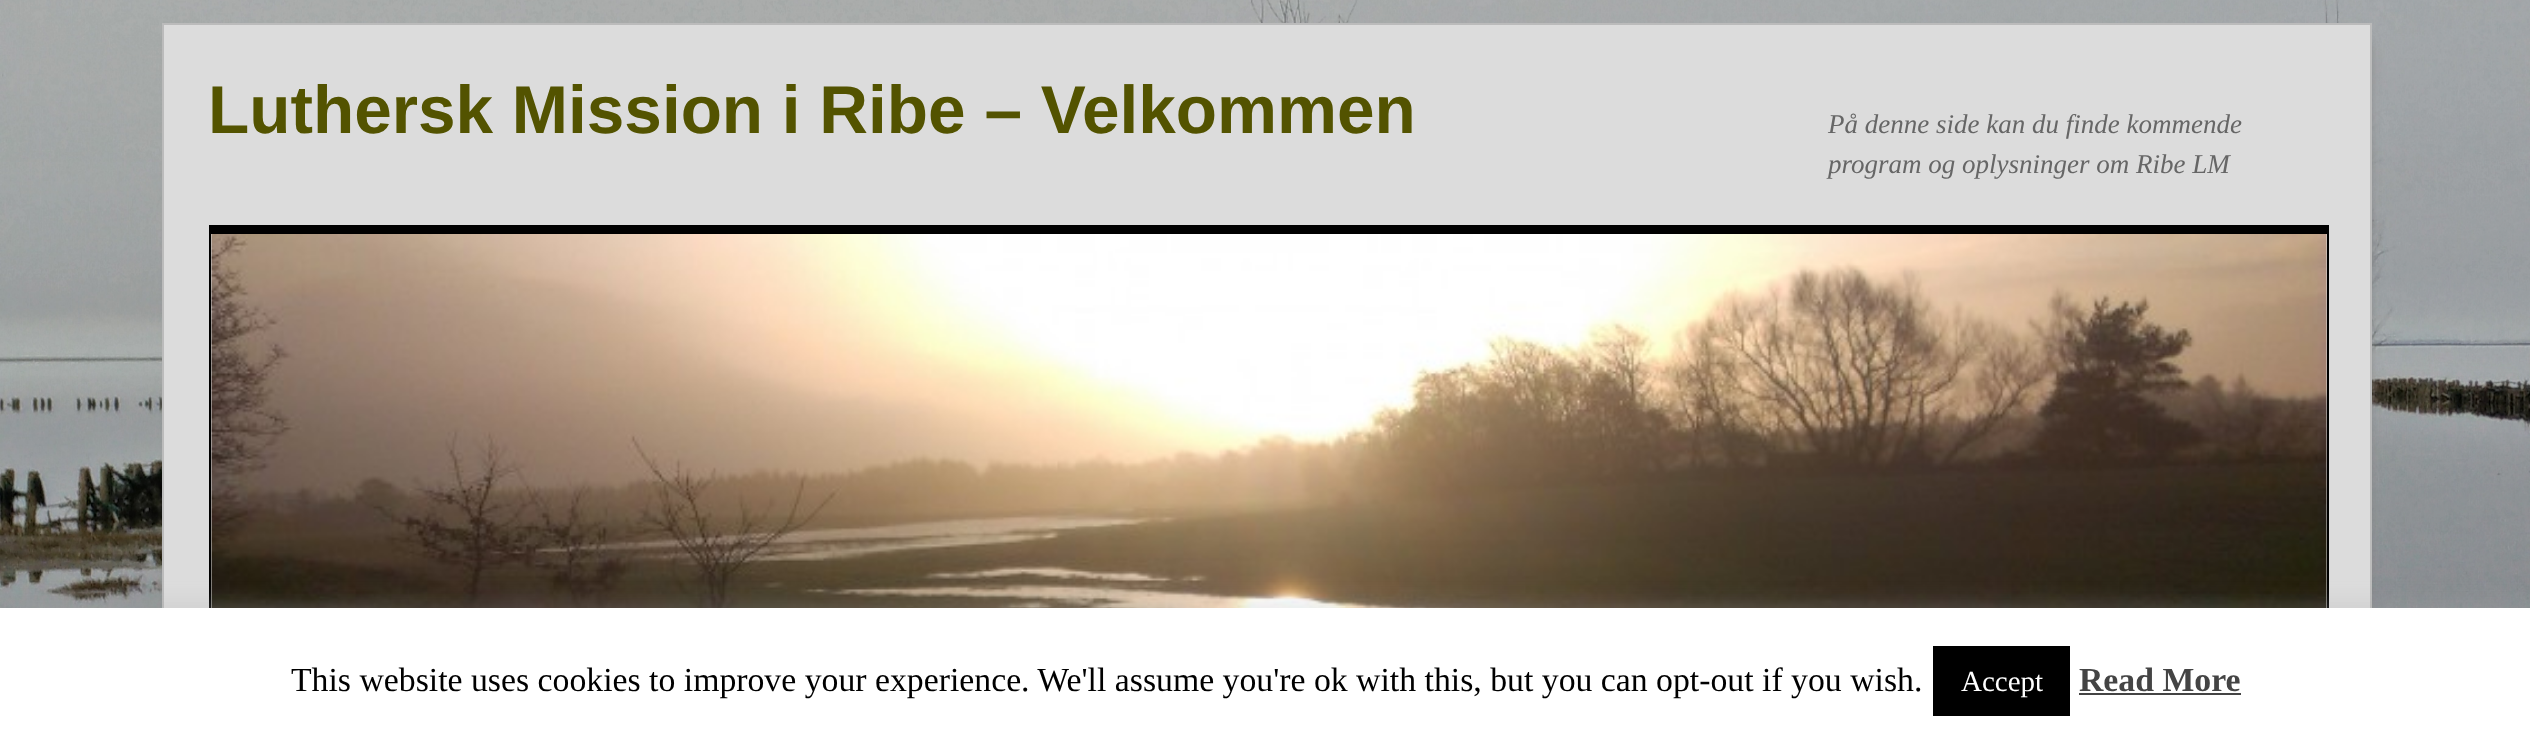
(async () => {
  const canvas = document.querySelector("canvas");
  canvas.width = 2530;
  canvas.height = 741;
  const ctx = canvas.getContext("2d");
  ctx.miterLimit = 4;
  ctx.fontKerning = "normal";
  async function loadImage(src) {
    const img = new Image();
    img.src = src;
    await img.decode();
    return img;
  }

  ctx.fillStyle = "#ffffff";
  ctx.fillRect(0, 0, 2530, 741);
  ctx.drawImage(await loadImage("img/1.png"), 0, 0, 2530, 608);
  ctx.fillStyle = "#808080";
  ctx.filter = "blur(5.5px)";
  ctx.beginPath();
  ctx.rect(173, 41, 2196, 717);
  ctx.fill();
  ctx.filter = "none";
  ctx.fillStyle = "#dcdcdc";
  ctx.fillRect(164, 25, 2206, 583);
  ctx.strokeStyle = "#bbbbbb";
  ctx.lineWidth = 2;
  ctx.strokeRect(163, 24, 2208, 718);
  for (const [x, y, w, h, color] of [
    [211, 225, 2116, 9, "#000000"],
    [2327, 225, 2, 383, "#000000"],
    [209, 225, 2, 383, "#000000"],
  ]) {
    ctx.fillStyle = color;
    ctx.fillRect(x, y, w, h);
  }
  ctx.drawImage(await loadImage("img/2.png"), 211, 234, 2116, 374);
  ctx.fillStyle = "rgba(172, 171, 171, 0.3)";
  ctx.filter = "blur(11px)";
  ctx.beginPath();
  ctx.rect(0, 605, 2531, 135);
  ctx.fill();
  ctx.filter = "none";
  for (const [x, y, w, h, color] of [
    [0, 608, 2530, 133, "#ffffff"],
    [1933, 646, 137, 70, "#000000"],
    [2079, 693, 162, 2, "#444444"],
  ]) {
    ctx.fillStyle = color;
    ctx.fillRect(x, y, w, h);
  }
  ctx.font = "bold 67.5px Liberation Sans";
  ctx.fillStyle = "#535300";
  ctx.fillText("Luthersk Mission i Ribe – Velkommen", 208, 133);
  ctx.font = "italic 27px Liberation Serif";
  ctx.fillStyle = "#666666";
  ctx.fillText("På denne side kan du finde kommende", 1828, 133);
  ctx.fillText("program og oplysninger om Ribe LM", 1828, 173);
  ctx.font = "33.75px Liberation Serif";
  ctx.fillStyle = "#000000";
  ctx.fillText("This website uses cookies to improve your experience. We'll assume you're ok with this, but you can opt-out if you wish.", 291, 691);
  ctx.font = "29px Liberation Serif";
  ctx.fillStyle = "#ffffff";
  ctx.fillText("Accept", 1961, 691);
  ctx.font = "bold 33.75px Liberation Serif";
  ctx.fillStyle = "#444444";
  ctx.fillText("Read More", 2079, 691);
})();
